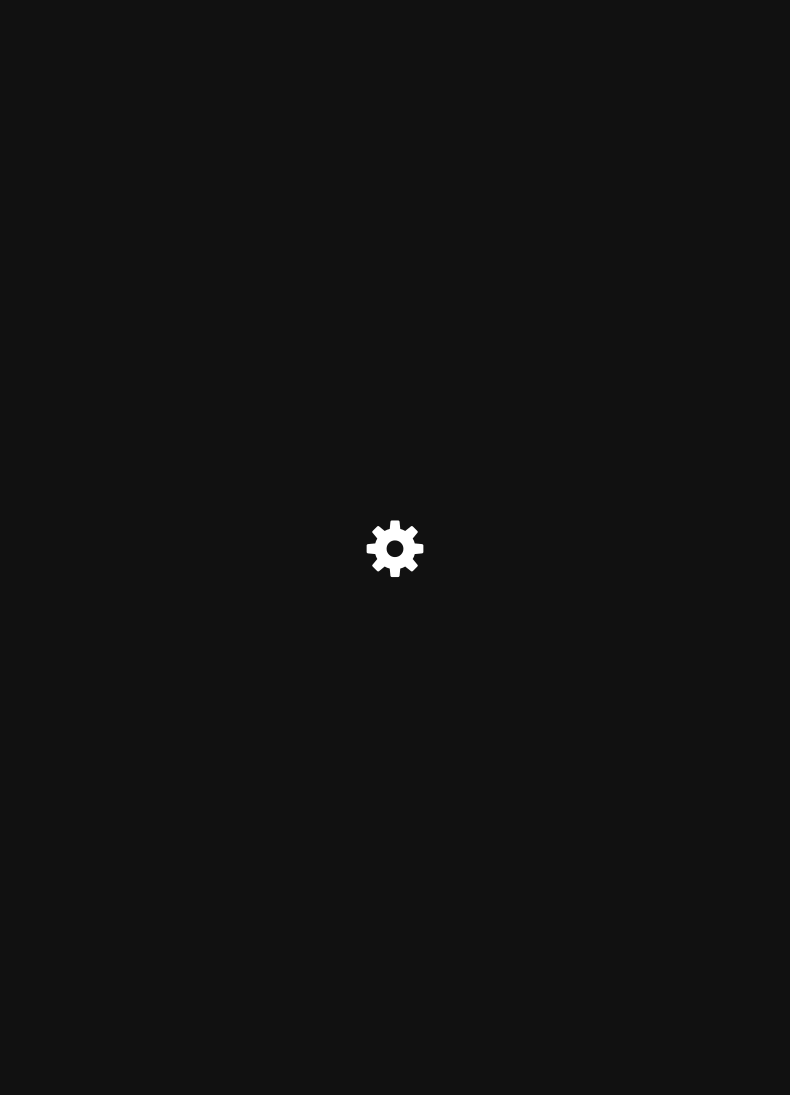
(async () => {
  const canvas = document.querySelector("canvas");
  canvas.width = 790;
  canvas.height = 1095;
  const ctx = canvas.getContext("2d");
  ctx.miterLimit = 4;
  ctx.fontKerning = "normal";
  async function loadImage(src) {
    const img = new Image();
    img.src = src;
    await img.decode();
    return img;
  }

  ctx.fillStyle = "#111111";
  ctx.fillRect(0, 0, 790, 1095);
  ctx.drawImage(await loadImage("img/1.png"), 366, 520, 58, 58);
})();
